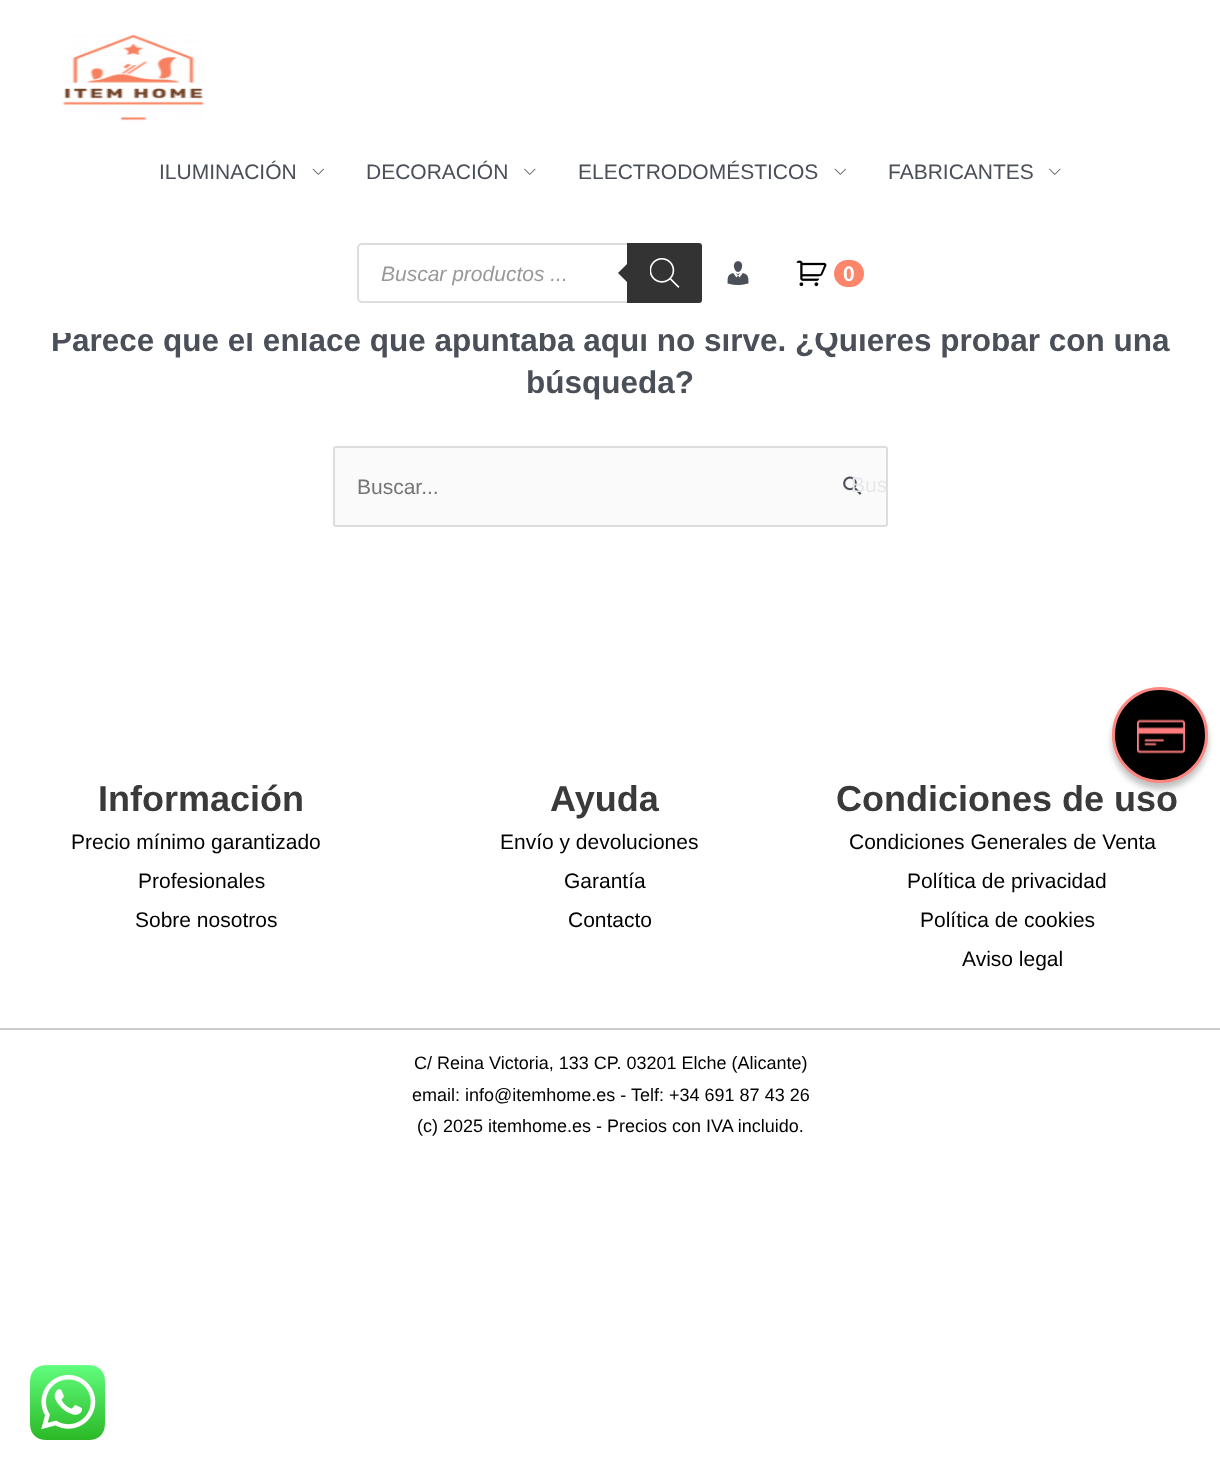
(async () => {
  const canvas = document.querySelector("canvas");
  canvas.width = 1220;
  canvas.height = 1470;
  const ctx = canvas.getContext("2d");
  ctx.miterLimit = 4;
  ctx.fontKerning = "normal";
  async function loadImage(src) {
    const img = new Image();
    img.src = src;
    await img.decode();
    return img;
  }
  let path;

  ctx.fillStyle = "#ffffff";
  ctx.fillRect(0, 0, 1220, 1470);
  ctx.drawImage(await loadImage("img/1.png"), 62, 34, 143, 87);
  ctx.drawImage(await loadImage("img/2.png"), 312, 168, 12, 7);
  ctx.drawImage(await loadImage("img/3.png"), 524, 168, 12, 7);
  ctx.drawImage(await loadImage("img/2.png"), 834, 168, 12, 7);
  ctx.drawImage(await loadImage("img/3.png"), 1049, 168, 12, 7);
  ctx.beginPath();
  ctx.roundRect(358, 244, 343, 58, 4);
  ctx.strokeStyle = "#dddddd";
  ctx.lineWidth = 2;
  ctx.stroke();
  ctx.fillStyle = "#333333";
  ctx.beginPath();
  ctx.roundRect(627, 243, 75, 60, [0, 3, 3, 0]);
  ctx.fill();
  path = new Path2D("M630 261V285L618 273Z");
  ctx.fill(path);
  ctx.drawImage(await loadImage("img/4.png"), 650, 258, 30, 30);
  ctx.drawImage(await loadImage("img/5.png"), 727, 261, 22, 24);
  ctx.drawImage(await loadImage("img/6.png"), 796, 260, 31, 27);
  ctx.fillStyle = "#fc856a";
  ctx.beginPath();
  ctx.roundRect(834, 260, 30, 27, 13.5);
  ctx.fill();
  ctx.fillStyle = "#fafafa";
  ctx.beginPath();
  ctx.roundRect(334, 447, 553, 79, 2);
  ctx.fill();
  ctx.stroke();
  ctx.drawImage(await loadImage("img/7.png"), 843, 476, 19, 19);
  ctx.fillStyle = "rgba(0, 0, 0, 0.25)";
  ctx.filter = "blur(3px)";
  ctx.beginPath();
  ctx.roundRect(1112, 693, 96, 96, 48);
  ctx.fill();
  ctx.filter = "none";
  ctx.fillStyle = "#000000";
  ctx.beginPath();
  ctx.arc(1160, 735, 46.5, 0, Math.PI * 2);
  ctx.fill();
  ctx.strokeStyle = "#fe8680";
  ctx.lineWidth = 3;
  ctx.stroke();
  ctx.drawImage(await loadImage("img/8.png"), 1137, 719, 48, 35);
  ctx.fillStyle = "#cccccc";
  ctx.fillRect(0, 1028, 1220, 2);
  ctx.drawImage(await loadImage("img/9.png"), 30, 1365, 75, 75);
  ctx.font = "21px Liberation Sans";
  ctx.fillStyle = "#4b4f58";
  for (const [text, x, y] of [
    ["ILUMINACIÓN", 159, 179],
    ["DECORACIÓN", 366, 179],
    ["ELECTRODOMÉSTICOS", 578, 179],
    ["FABRICANTES", 888, 179],
  ]) {
    ctx.fillText(text, x, y);
  }
  ctx.font = "italic 21px Liberation Sans";
  ctx.fillStyle = "#999999";
  ctx.fillText("Buscar productos ...", 381, 281);
  ctx.font = "bold 21px Liberation Sans";
  ctx.fillStyle = "#ffffff";
  ctx.fillText("0", 843, 281);
  ctx.font = "bold 31.5px Liberation Sans";
  ctx.fillStyle = "#4b4f58";
  ctx.fillText("Parece que el enlace que apuntaba aquí no sirve. ¿Quieres probar con una", 51, 351);
  ctx.fillStyle = "#ffffff";
  ctx.fillRect(53, 327, 945, 6);
  ctx.fillStyle = "#4b4f58";
  ctx.fillText("búsqueda?", 526, 393);
  ctx.font = "21px Liberation Sans";
  ctx.fillStyle = "#757575";
  ctx.fillText("Buscar...", 357, 494);
  ctx.fillStyle = "#e7e8e9";
  ctx.fillText("Bus", 851, 492);
  ctx.font = "bold 36px Liberation Sans";
  ctx.fillStyle = "#3a3a3a";
  ctx.fillText("Información", 98, 811);
  ctx.font = "21px Liberation Sans";
  ctx.fillStyle = "#000000";
  for (const [text, x, y] of [
    ["Precio mínimo garantizado", 71, 849],
    ["Profesionales", 138, 888],
    ["Sobre nosotros", 135, 927],
  ]) {
    ctx.fillText(text, x, y);
  }
  ctx.font = "bold 36px Liberation Sans";
  ctx.fillStyle = "#3a3a3a";
  ctx.fillText("Ayuda", 550, 811);
  ctx.font = "21px Liberation Sans";
  ctx.fillStyle = "#000000";
  for (const [text, x, y] of [
    ["Envío y devoluciones", 500, 849],
    ["Garantía", 564, 888],
    ["Contacto", 568, 927],
  ]) {
    ctx.fillText(text, x, y);
  }
  ctx.font = "bold 36px Liberation Sans";
  ctx.fillStyle = "#3a3a3a";
  ctx.fillText("Condiciones de uso", 836, 811);
  ctx.font = "21px Liberation Sans";
  ctx.fillStyle = "#000000";
  for (const [text, x, y] of [
    ["Condiciones Generales de Venta", 849, 849],
    ["Política de privacidad", 907, 888],
    ["Política de cookies", 920, 927],
    ["Aviso legal", 962, 966],
  ]) {
    ctx.fillText(text, x, y);
  }
  ctx.font = "18px Liberation Sans";
  for (const [text, x, y] of [
    ["C/ Reina Victoria, 133 CP. 03201 Elche (Alicante)", 414, 1069],
    ["email: info@itemhome.es - Telf: +34 691 87 43 26", 412, 1101],
    ["(c) 2025 itemhome.es - Precios con IVA incluido.", 417, 1132],
  ]) {
    ctx.fillText(text, x, y);
  }
})();
